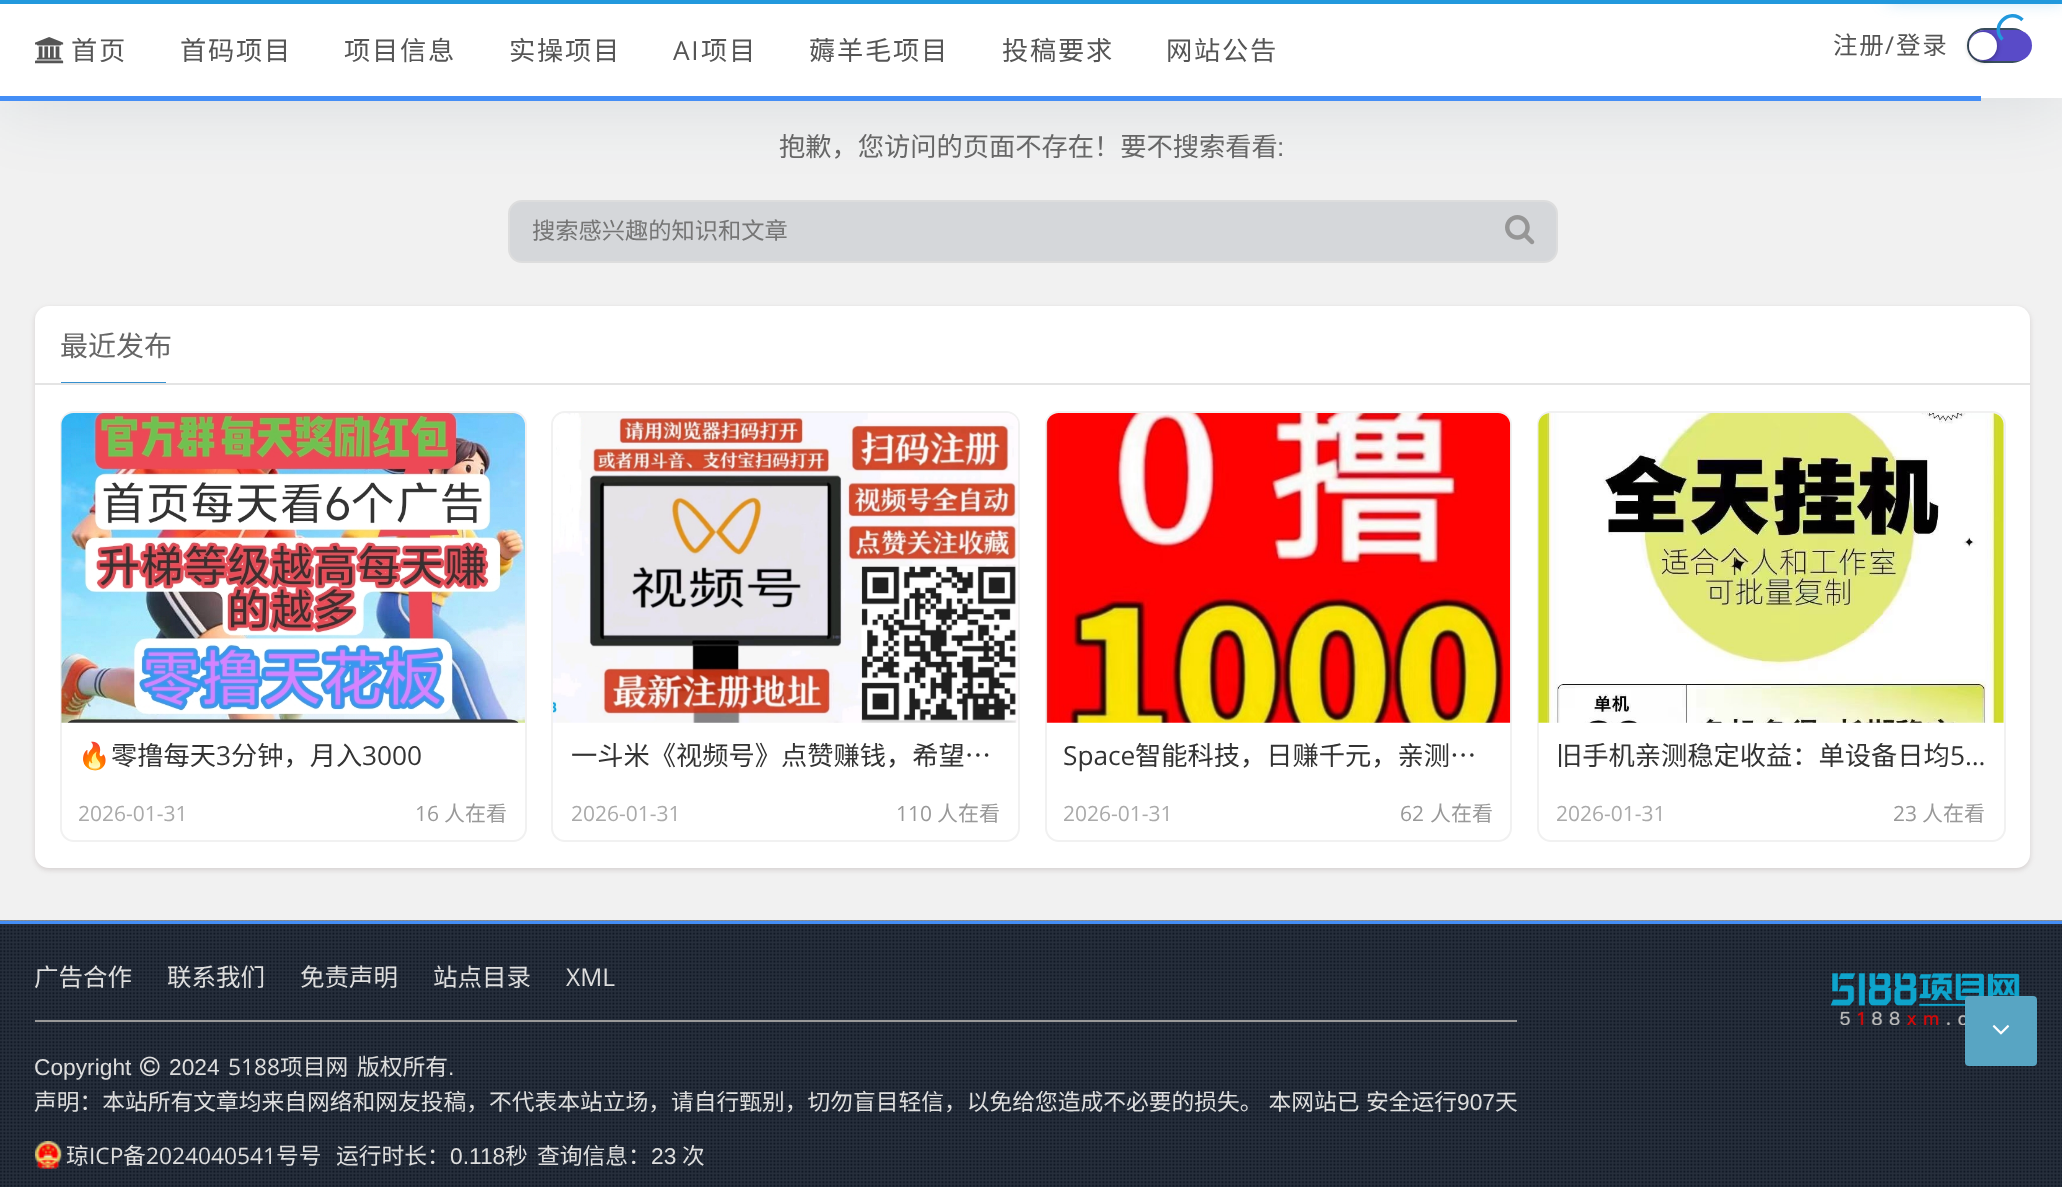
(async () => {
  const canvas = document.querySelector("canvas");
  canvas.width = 2062;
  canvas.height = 1187;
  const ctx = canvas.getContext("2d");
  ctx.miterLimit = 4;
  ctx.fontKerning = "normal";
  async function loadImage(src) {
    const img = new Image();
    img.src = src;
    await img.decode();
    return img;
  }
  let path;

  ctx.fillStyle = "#f1f1f1";
  ctx.fillRect(0, 0, 2062, 1187);
  ctx.fillStyle = "#d5d7da";
  ctx.beginPath();
  ctx.roundRect(509, 201, 1048, 61, 13);
  ctx.fill();
  ctx.strokeStyle = "#dddddd";
  ctx.lineWidth = 2;
  ctx.stroke();
  ctx.fillStyle = "rgba(17, 58, 93, 0.1)";
  ctx.filter = "blur(35px)";
  ctx.beginPath();
  ctx.rect(0, 9, 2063, 98);
  ctx.fill();
  ctx.filter = "none";
  ctx.fillStyle = "#2299dd";
  ctx.fillRect(0, 0, 2062, 4);
  ctx.fillStyle = "#ffffff";
  ctx.fillRect(0, 4, 2062, 94);
  ctx.fillStyle = "#2299dd";
  ctx.filter = "blur(9px)";
  ctx.beginPath();
  ctx.rect(1888, -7, 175, 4);
  ctx.fill();
  ctx.filter = "none";
  ctx.beginPath();
  ctx.roundRect(1968, 29, 61, 33, 16.5);
  ctx.strokeStyle = "#394e5d";
  ctx.stroke();
  ctx.fillStyle = "#594bc8";
  ctx.beginPath();
  ctx.roundRect(1969, 30, 63, 31, 15.5);
  ctx.fill();
  ctx.fillStyle = "rgba(0, 0, 0, 0.4)";
  ctx.filter = "blur(2.5px)";
  ctx.beginPath();
  ctx.roundRect(1969, 33, 28, 28, 14);
  ctx.fill();
  ctx.filter = "none";
  ctx.fillStyle = "#ffffff";
  ctx.beginPath();
  ctx.arc(1983, 46, 14, 0, Math.PI * 2);
  ctx.fill();
  path = new Path2D("M2002.5 39.5C1989.5 26.5 2009.5 7 2022.5 20");
  ctx.strokeStyle = "#2299dd";
  ctx.lineWidth = 3.5;
  ctx.stroke(path);
  ctx.drawImage(await loadImage("img/1.png"), 35, 37, 29, 27);
  ctx.fillStyle = "#448ef6";
  ctx.fillRect(0, 96, 1981, 5);
  ctx.drawImage(await loadImage("img/2.png"), 1505, 215, 30, 30);
  ctx.fillStyle = "rgba(165, 152, 152, 0.38)";
  ctx.filter = "blur(2.5px)";
  ctx.beginPath();
  ctx.roundRect(35, 308, 1995, 562, 14);
  ctx.fill();
  ctx.filter = "none";
  ctx.fillStyle = "#ffffff";
  ctx.beginPath();
  ctx.roundRect(35, 306, 1995, 562, 14);
  ctx.fill();
  ctx.fillStyle = "#e4e4e4";
  ctx.fillRect(35, 383, 1995, 2);
  ctx.fillStyle = "#3690cf";
  ctx.fillRect(61, 382, 105, 1);
  ctx.beginPath();
  ctx.roundRect(61, 412, 465, 429, 13);
  ctx.strokeStyle = "#f1f1f1";
  ctx.lineWidth = 2;
  ctx.stroke();
  ctx.drawImage(await loadImage("img/3.png"), 61, 413, 464, 310);
  ctx.beginPath();
  ctx.roundRect(552, 412, 467, 429, 13);
  ctx.stroke();
  ctx.drawImage(await loadImage("img/4.png"), 553, 413, 465, 310);
  ctx.beginPath();
  ctx.roundRect(1046, 412, 465, 429, 13);
  ctx.stroke();
  ctx.drawImage(await loadImage("img/5.png"), 1046, 413, 465, 310);
  ctx.beginPath();
  ctx.roundRect(1538, 412, 467, 429, 13);
  ctx.stroke();
  ctx.drawImage(await loadImage("img/6.png"), 1538, 413, 466, 310);
  ctx.drawImage(await loadImage("img/7.png"), 0, 920, 2062, 267);
  ctx.fillStyle = "#448ef6";
  ctx.fillRect(0, 921, 2062, 3);
  ctx.fillStyle = "#999999";
  ctx.fillRect(35, 1020, 1482, 2);
  ctx.drawImage(await loadImage("img/8.png"), 140, 1056, 20, 21);
  ctx.drawImage(await loadImage("img/9.png"), 35, 1141, 27, 28);
  ctx.drawImage(await loadImage("img/10.png"), 1830, 973, 190, 52);
  ctx.fillStyle = "#58a5c3";
  ctx.beginPath();
  ctx.roundRect(1965, 996, 72, 70, 4);
  ctx.fill();
  ctx.drawImage(await loadImage("img/11.png"), 1992, 1025, 18, 10);
  ctx.letterSpacing = "1.75px";
  ctx.font = "26.25px Noto Sans CJK SC";
  ctx.fillStyle = "#555555";
  for (const [text, x, y] of [
    ["首页", 71, 60],
    ["首码项目", 180, 60],
    ["项目信息", 344, 60],
    ["实操项目", 509, 60],
  ]) {
    ctx.fillText(text, x, y);
  }
  ctx.font = "26.25px Open Sans";
  ctx.fillText("AI", 673, 60);
  ctx.font = "26.25px Noto Sans CJK SC";
  for (const [text, x, y] of [
    ["项目", 701, 60],
    ["薅羊毛项目", 809, 60],
    ["投稿要求", 1002, 60],
    ["网站公告", 1166, 60],
  ]) {
    ctx.fillText(text, x, y);
  }
  ctx.font = "24.5px Noto Sans CJK SC";
  ctx.fillText("注册", 1833, 54);
  ctx.font = "24.5px Open Sans";
  ctx.fillText("/", 1885, 54);
  ctx.font = "24.5px Noto Sans CJK SC";
  ctx.fillText("登录", 1896, 54);
  ctx.letterSpacing = "0px";
  ctx.font = "26.25px Noto Sans CJK SC";
  ctx.fillStyle = "#666666";
  ctx.fillText("抱歉，您访问的页面不存在！要不搜索看看", 779, 156);
  ctx.font = "26.25px Liberation Sans";
  ctx.fillText(":", 1277, 156);
  ctx.font = "23.25px Noto Sans CJK SC";
  ctx.fillStyle = "#757575";
  ctx.fillText("搜索感兴趣的知识和文章", 532, 239);
  ctx.font = "28px Noto Sans CJK SC";
  ctx.fillStyle = "#666666";
  ctx.fillText("最近发布", 60, 356);
  ctx.font = "26.25px Noto Color Emoji";
  ctx.fillStyle = "#333333";
  ctx.fillText("🔥", 78, 765);
  ctx.font = "26.25px Noto Sans CJK SC";
  ctx.fillText("零撸每天", 111, 765);
  ctx.font = "26.25px Open Sans";
  ctx.fillText("3", 216, 765);
  ctx.font = "26.25px Noto Sans CJK SC";
  ctx.fillText("分钟，月入", 231, 765);
  ctx.font = "26.25px Open Sans";
  ctx.fillText("3000", 362, 765);
  ctx.font = "21px Open Sans";
  ctx.fillStyle = "#aaaaaa";
  ctx.fillText("2026-01-31", 78, 821);
  ctx.fillStyle = "#999999";
  ctx.fillText("16", 415, 821);
  ctx.font = "21px Noto Sans CJK SC";
  ctx.fillText("人在看", 444, 821);
  ctx.font = "26.25px Noto Sans CJK SC";
  ctx.fillStyle = "#333333";
  ctx.fillText("一斗米《视频号》点赞赚钱，希望…", 571, 765);
  ctx.font = "21px Open Sans";
  ctx.fillStyle = "#aaaaaa";
  ctx.fillText("2026-01-31", 571, 821);
  ctx.fillStyle = "#999999";
  ctx.fillText("110", 896, 821);
  ctx.font = "21px Noto Sans CJK SC";
  ctx.fillText("人在看", 937, 821);
  ctx.font = "26.25px Open Sans";
  ctx.fillStyle = "#333333";
  ctx.fillText("Space", 1063, 765);
  ctx.font = "26.25px Noto Sans CJK SC";
  ctx.fillText("智能科技，日赚千元，亲测…", 1135, 765);
  ctx.font = "21px Open Sans";
  ctx.fillStyle = "#aaaaaa";
  ctx.fillText("2026-01-31", 1063, 821);
  ctx.fillStyle = "#999999";
  ctx.fillText("62", 1400, 821);
  ctx.font = "21px Noto Sans CJK SC";
  ctx.fillText("人在看", 1430, 821);
  ctx.font = "26.25px Noto Sans CJK SC";
  ctx.fillStyle = "#333333";
  ctx.fillText("旧手机亲测稳定收益：单设备日均", 1556, 765);
  ctx.font = "26.25px Open Sans";
  ctx.fillText("5…", 1950, 765);
  ctx.font = "21px Open Sans";
  ctx.fillStyle = "#aaaaaa";
  ctx.fillText("2026-01-31", 1556, 821);
  ctx.fillStyle = "#999999";
  ctx.fillText("23", 1893, 821);
  ctx.font = "21px Noto Sans CJK SC";
  ctx.fillText("人在看", 1922, 821);
  ctx.font = "24.5px Noto Sans CJK SC";
  ctx.fillStyle = "#dddddd";
  for (const [text, x, y] of [
    ["广告合作", 34, 986],
    ["联系我们", 167, 986],
    ["免责声明", 300, 986],
    ["站点目录", 433, 986],
  ]) {
    ctx.fillText(text, x, y);
  }
  ctx.font = "24.5px Open Sans";
  ctx.fillText("XML", 566, 986);
  ctx.font = "22.75px Liberation Sans";
  ctx.fillText("Copyright", 34, 1075);
  ctx.fillText("2024", 169, 1075);
  ctx.font = "22.75px Open Sans";
  ctx.fillText("5188", 228, 1075);
  ctx.font = "22.75px Noto Sans CJK SC";
  ctx.fillText("项目网", 280, 1075);
  ctx.fillText("版权所有", 357, 1075);
  ctx.font = "22.75px Liberation Sans";
  ctx.fillText(".", 448, 1075);
  ctx.wordSpacing = "1px";
  ctx.font = "22.75px Noto Sans CJK SC";
  ctx.fillText("声明：本站所有文章均来自网络和网友投稿，不代表本站立场，请自行甄别，切勿盲目轻信，以免给您造成不必要的损失。 本网站已", 34, 1110);
  ctx.wordSpacing = "0px";
  ctx.fillText("安全运行", 1366, 1110);
  ctx.font = "22.75px Liberation Sans";
  ctx.fillText("907", 1457, 1110);
  ctx.font = "22.75px Noto Sans CJK SC";
  ctx.fillText("天", 1495, 1110);
  ctx.fillText("琼", 66, 1164);
  ctx.font = "22.75px Open Sans";
  ctx.fillText("ICP", 89, 1164);
  ctx.font = "22.75px Noto Sans CJK SC";
  ctx.fillText("备", 123, 1164);
  ctx.font = "22.75px Open Sans";
  ctx.fillText("2024040541", 146, 1164);
  ctx.font = "22.75px Noto Sans CJK SC";
  ctx.fillText("号号", 276, 1164);
  ctx.fillText("运行时长：", 336, 1164);
  ctx.font = "22.75px Liberation Sans";
  ctx.fillText("0.118", 450, 1164);
  ctx.font = "22.75px Noto Sans CJK SC";
  ctx.fillText("秒", 505, 1164);
  ctx.fillText("查询信息：", 537, 1164);
  ctx.font = "22.75px Liberation Sans";
  ctx.fillText("23", 651, 1164);
  ctx.font = "22.75px Noto Sans CJK SC";
  ctx.fillText("次", 682, 1164);
})();
